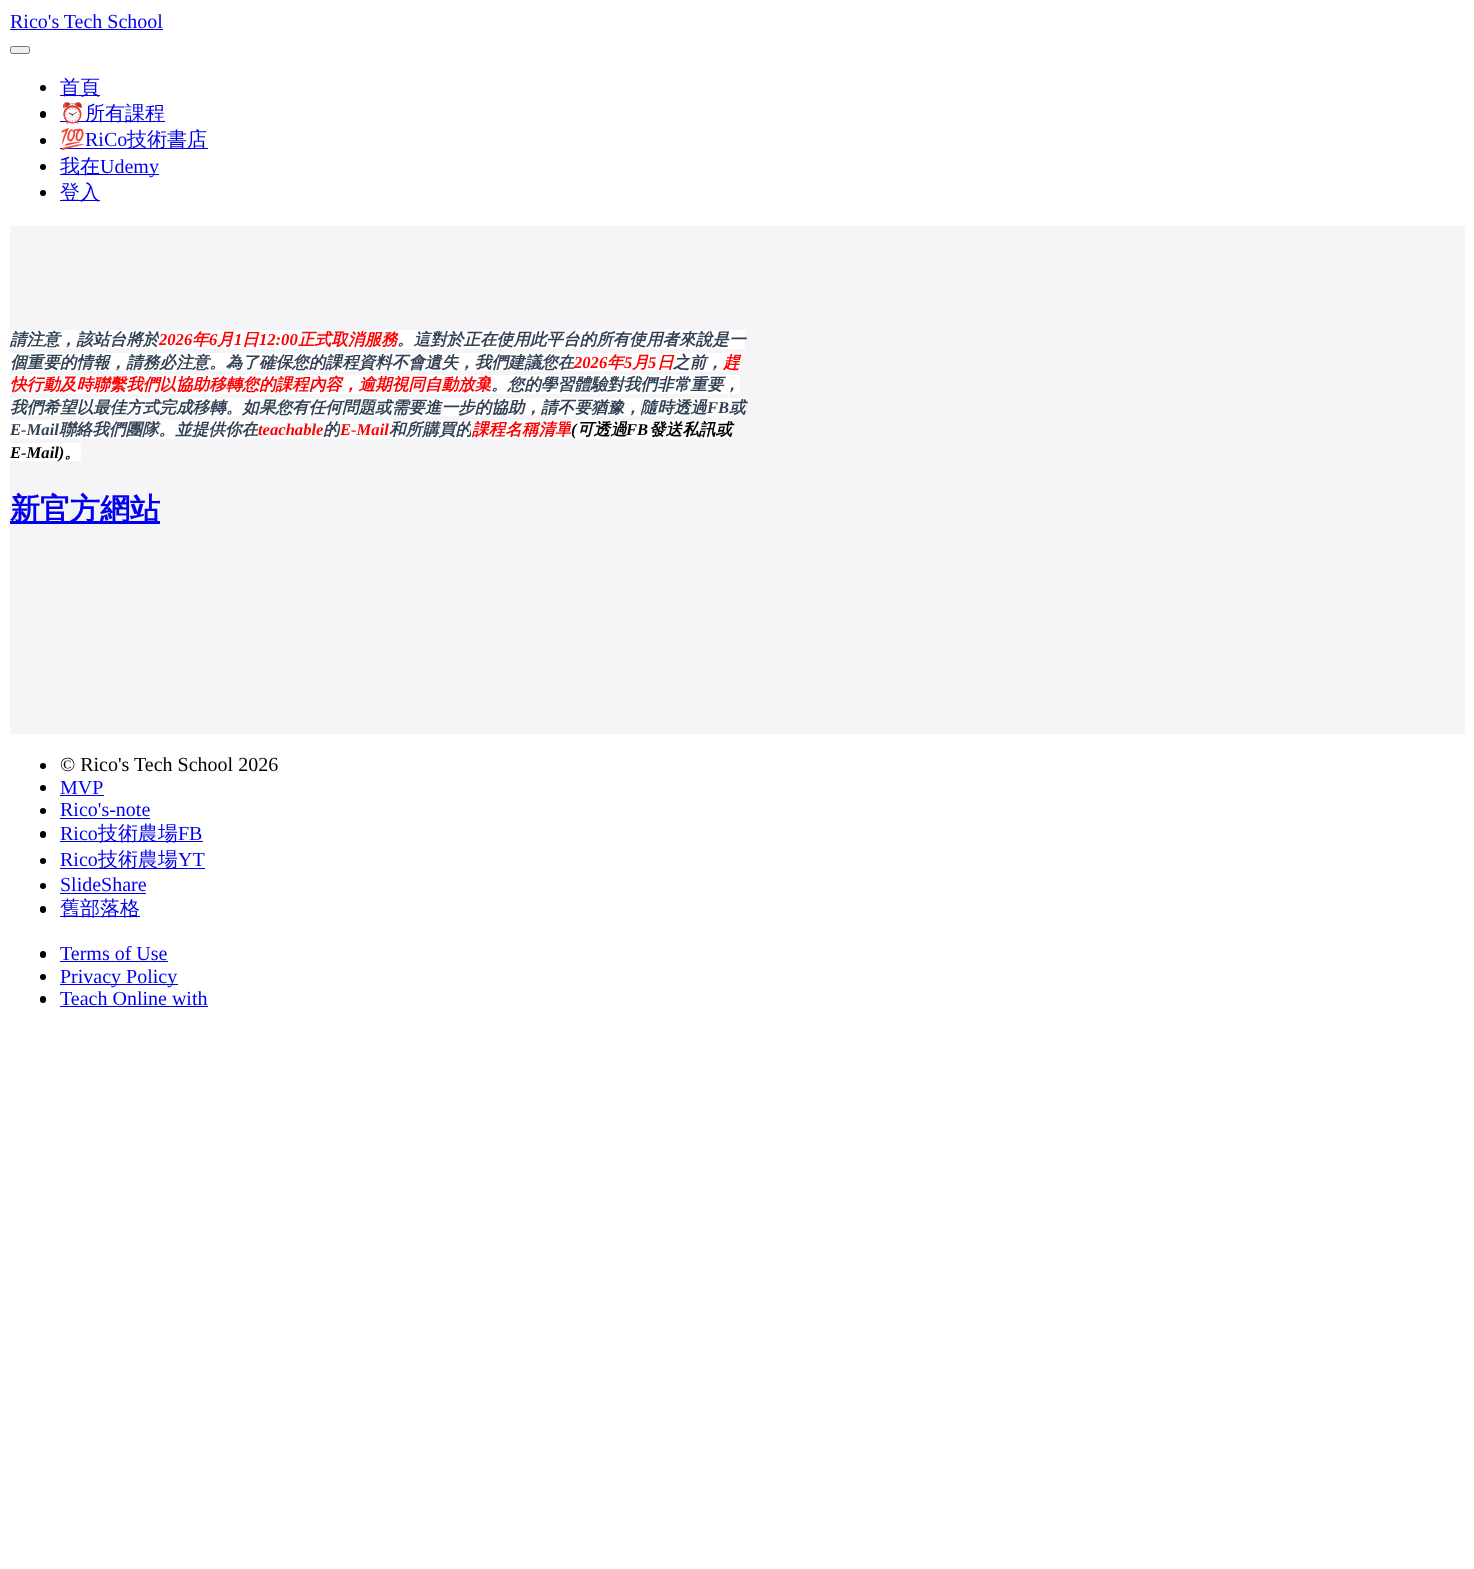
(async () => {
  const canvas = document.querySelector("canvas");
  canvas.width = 1474;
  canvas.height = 1569;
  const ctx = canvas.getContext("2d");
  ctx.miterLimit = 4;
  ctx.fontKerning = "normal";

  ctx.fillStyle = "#ffffff";
  ctx.fillRect(0, 0, 1474, 1569);
  ctx.fillStyle = "#0000ee";
  ctx.fillRect(10, 29, 153, 1);
  ctx.fillStyle = "#efefef";
  ctx.beginPath();
  ctx.roundRect(10.5, 46.5, 19, 7, 2);
  ctx.fill();
  ctx.strokeStyle = "#767676";
  ctx.stroke();
  ctx.fillStyle = "#000000";
  ctx.beginPath();
  ctx.arc(43, 88, 3, 0, Math.PI * 2);
  ctx.fill();
  ctx.fillStyle = "#0000ee";
  ctx.fillRect(60, 95, 40, 1);
  ctx.fillStyle = "#000000";
  ctx.beginPath();
  ctx.roundRect(40, 111, 6, 7, 3);
  ctx.fill();
  ctx.fillStyle = "#0000ee";
  ctx.fillRect(60, 121, 105, 1);
  ctx.fillStyle = "#000000";
  ctx.beginPath();
  ctx.arc(43, 141, 3, 0, Math.PI * 2);
  ctx.fill();
  ctx.fillStyle = "#0000ee";
  ctx.fillRect(60, 148, 148, 1);
  ctx.fillStyle = "#000000";
  ctx.beginPath();
  ctx.arc(43, 167, 3, 0, Math.PI * 2);
  ctx.fill();
  ctx.fillStyle = "#0000ee";
  ctx.fillRect(60, 174, 99, 1);
  ctx.fillStyle = "#000000";
  ctx.beginPath();
  ctx.arc(43, 193, 3, 0, Math.PI * 2);
  ctx.fill();
  for (const [x, y, w, h, color] of [
    [60, 200, 40, 1, "#0000ee"],
    [10, 226, 1455, 508, "#f5f5f8"],
    [10, 330, 149, 19, "#ffffff"],
    [10, 353, 564, 18, "#ffffff"],
    [10, 375, 481, 19, "#ffffff"],
    [10, 398, 735, 18, "#ffffff"],
    [10, 420, 248, 19, "#ffffff"],
    [10, 443, 71, 18, "#ffffff"],
    [10, 521, 150, 3, "#0000ee"],
  ]) {
    ctx.fillStyle = color;
    ctx.fillRect(x, y, w, h);
  }
  ctx.fillStyle = "#000000";
  ctx.beginPath();
  ctx.arc(43, 766, 3, 0, Math.PI * 2);
  ctx.fill();
  ctx.beginPath();
  ctx.arc(43, 788, 3, 0, Math.PI * 2);
  ctx.fill();
  ctx.fillStyle = "#0000ee";
  ctx.fillRect(60, 795, 44, 1);
  ctx.fillStyle = "#000000";
  ctx.beginPath();
  ctx.arc(43, 811, 3, 0, Math.PI * 2);
  ctx.fill();
  ctx.fillStyle = "#0000ee";
  ctx.fillRect(60, 818, 90, 1);
  ctx.fillStyle = "#000000";
  ctx.beginPath();
  ctx.roundRect(40, 831, 6, 7, 3);
  ctx.fill();
  ctx.fillStyle = "#0000ee";
  ctx.fillRect(60, 841, 143, 1);
  ctx.fillStyle = "#000000";
  ctx.beginPath();
  ctx.arc(43, 861, 3, 0, Math.PI * 2);
  ctx.fill();
  ctx.fillStyle = "#0000ee";
  ctx.fillRect(60, 868, 145, 1);
  ctx.fillStyle = "#000000";
  ctx.beginPath();
  ctx.arc(43, 886, 3, 0, Math.PI * 2);
  ctx.fill();
  ctx.fillStyle = "#0000ee";
  ctx.fillRect(60, 893, 86, 1);
  ctx.fillStyle = "#000000";
  ctx.beginPath();
  ctx.roundRect(40, 906, 6, 7, 3);
  ctx.fill();
  ctx.fillStyle = "#0000ee";
  ctx.fillRect(60, 916, 80, 1);
  ctx.fillStyle = "#000000";
  ctx.beginPath();
  ctx.roundRect(40, 951, 6, 7, 3);
  ctx.fill();
  ctx.fillStyle = "#0000ee";
  ctx.fillRect(60, 961, 108, 1);
  ctx.fillStyle = "#000000";
  ctx.beginPath();
  ctx.arc(43, 977, 3, 0, Math.PI * 2);
  ctx.fill();
  ctx.fillStyle = "#0000ee";
  ctx.fillRect(60, 984, 118, 1);
  ctx.fillStyle = "#000000";
  ctx.beginPath();
  ctx.roundRect(40, 996, 6, 7, 3);
  ctx.fill();
  ctx.fillStyle = "#0000ee";
  ctx.fillRect(60, 1006, 148, 1);
  ctx.font = "20px Liberation Serif";
  ctx.fillText("Rico's Tech School", 10, 28);
  ctx.font = "500 20px WenQuanYi Zen Hei";
  ctx.fillText("首頁", 60, 94);
  ctx.font = "20px Noto Color Emoji";
  ctx.fillText("⏰", 60, 120);
  ctx.font = "500 20px WenQuanYi Zen Hei";
  ctx.fillText("所有課程", 85, 120);
  ctx.font = "20px Noto Color Emoji";
  ctx.fillText("💯", 60, 146);
  ctx.font = "20px Liberation Serif";
  ctx.fillText("RiCo", 85, 146);
  ctx.font = "500 20px WenQuanYi Zen Hei";
  ctx.fillText("技術書店", 127, 146);
  ctx.fillText("我在", 60, 173);
  ctx.font = "20px Liberation Serif";
  ctx.fillText("Udemy", 100, 173);
  ctx.font = "500 20px WenQuanYi Zen Hei";
  ctx.fillText("登入", 60, 199);
  ctx.font = "italic bold 16.6px WenQuanYi Zen Hei";
  ctx.fillStyle = "#334155";
  ctx.fillText("請注意，該站台將於", 10, 345);
  ctx.fillStyle = "#ffffff";
  ctx.fillRect(159, 330, 239, 19);
  ctx.font = "italic bold 16.6px Liberation Serif";
  ctx.fillStyle = "#ff0000";
  ctx.fillText("2026", 159, 345);
  ctx.font = "italic bold 16.6px WenQuanYi Zen Hei";
  ctx.fillText("年", 192, 345);
  ctx.font = "italic bold 16.6px Liberation Serif";
  ctx.fillText("6", 209, 345);
  ctx.font = "italic bold 16.6px WenQuanYi Zen Hei";
  ctx.fillText("月", 217, 345);
  ctx.font = "italic bold 16.6px Liberation Serif";
  ctx.fillText("1", 234, 345);
  ctx.font = "italic bold 16.6px WenQuanYi Zen Hei";
  ctx.fillText("日", 242, 345);
  ctx.font = "italic bold 16.6px Liberation Serif";
  ctx.fillText("12:00", 259, 345);
  ctx.font = "italic bold 16.6px WenQuanYi Zen Hei";
  ctx.fillText("正式取消服務", 298, 345);
  ctx.fillStyle = "#ffffff";
  ctx.fillRect(398, 330, 347, 19);
  ctx.fillStyle = "#334155";
  ctx.fillText("。這對於正在使用此平台的所有使用者來說是一", 397, 345);
  ctx.fillText("個重要的情報，請務必注意。為了確保您的課程資料不會遺失，我們建議您在", 10, 368);
  ctx.fillStyle = "#ffffff";
  ctx.fillRect(574, 353, 166, 18);
  ctx.fillStyle = "#ff0000";
  ctx.fillText("年", 607, 368);
  ctx.font = "italic bold 16.6px Liberation Serif";
  ctx.fillText("2026", 574, 368);
  ctx.fillText("5", 624, 368);
  ctx.font = "italic bold 16.6px WenQuanYi Zen Hei";
  ctx.fillText("月", 632, 368);
  ctx.font = "italic bold 16.6px Liberation Serif";
  ctx.fillText("5", 648, 368);
  ctx.font = "italic bold 16.6px WenQuanYi Zen Hei";
  ctx.fillText("日", 657, 368);
  ctx.fillStyle = "#334155";
  ctx.fillText("之前，", 673, 368);
  ctx.fillStyle = "#ff0000";
  ctx.fillText("趕", 723, 368);
  ctx.fillText("快行動及時聯繫我們以協助移轉您的課程內容，逾期視同自動放棄", 10, 390);
  ctx.fillStyle = "#ffffff";
  ctx.fillRect(491, 375, 249, 19);
  ctx.fillStyle = "#334155";
  ctx.fillText("。您的學習體驗對我們非常重要，", 491, 390);
  ctx.fillText("我們希望以最佳方式完成移轉。如果您有任何問題或需要進一步的協助，請不要猶豫，隨時透過", 10, 413);
  ctx.font = "italic bold 16.6px Liberation Serif";
  ctx.fillText("FB", 707, 413);
  ctx.font = "italic bold 16.6px WenQuanYi Zen Hei";
  ctx.fillText("或", 729, 413);
  ctx.font = "italic bold 16.6px Liberation Serif";
  ctx.fillText("E-Mail", 10, 435);
  ctx.font = "italic bold 16.6px WenQuanYi Zen Hei";
  ctx.fillText("聯絡我們團隊。並提供你在", 59, 435);
  ctx.fillStyle = "#ffffff";
  ctx.fillRect(258, 420, 82, 19);
  ctx.font = "italic bold 16.6px Liberation Serif";
  ctx.fillStyle = "#ff0000";
  ctx.fillText("teachable", 258, 435);
  ctx.font = "italic bold 16.6px WenQuanYi Zen Hei";
  ctx.fillStyle = "#334155";
  ctx.fillText("的", 323, 435);
  ctx.fillStyle = "#ffffff";
  ctx.fillRect(340, 420, 131, 19);
  ctx.font = "italic bold 16.6px Liberation Serif";
  ctx.fillStyle = "#ff0000";
  ctx.fillText("E-Mail", 340, 435);
  ctx.font = "italic bold 16.6px WenQuanYi Zen Hei";
  ctx.fillStyle = "#334155";
  ctx.fillText("和所購買的", 389, 435);
  ctx.fillStyle = "#ffffff";
  ctx.fillRect(471, 420, 100, 19);
  ctx.fillStyle = "#ff0000";
  ctx.fillText("課程名稱清單", 472, 435);
  ctx.fillStyle = "#ffffff";
  ctx.fillRect(571, 420, 160, 19);
  ctx.fillStyle = "#000000";
  ctx.fillText("可透過", 577, 435);
  ctx.font = "italic bold 16.6px Liberation Serif";
  ctx.fillText("(", 571, 435);
  ctx.fillText("FB", 626, 435);
  ctx.font = "italic bold 16.6px WenQuanYi Zen Hei";
  ctx.fillText("發送私訊或", 649, 435);
  ctx.font = "italic bold 16.6px Liberation Serif";
  ctx.fillText("E-Mail)", 10, 458);
  ctx.font = "italic bold 16.6px WenQuanYi Zen Hei";
  ctx.fillText("。", 64, 458);
  ctx.font = "bold 30px WenQuanYi Zen Hei";
  ctx.fillStyle = "#0000ee";
  ctx.fillText("新官方網站", 10, 519);
  ctx.font = "20px Liberation Serif";
  ctx.fillStyle = "#000000";
  ctx.fillText("© Rico's Tech School 2026", 60, 771);
  ctx.fillStyle = "#0000ee";
  for (const [text, x, y] of [
    ["MVP", 60, 794],
    ["Rico's-note", 60, 816],
    ["Rico", 60, 840],
  ]) {
    ctx.fillText(text, x, y);
  }
  ctx.font = "500 20px WenQuanYi Zen Hei";
  ctx.fillText("技術農場", 98, 840);
  ctx.font = "20px Liberation Serif";
  ctx.fillText("FB", 178, 840);
  ctx.fillText("Rico", 60, 866);
  ctx.font = "500 20px WenQuanYi Zen Hei";
  ctx.fillText("技術農場", 98, 866);
  ctx.font = "20px Liberation Serif";
  ctx.fillText("YT", 178, 866);
  ctx.fillText("SlideShare", 60, 891);
  ctx.font = "500 20px WenQuanYi Zen Hei";
  ctx.fillText("舊部落格", 60, 915);
  ctx.font = "20px Liberation Serif";
  for (const [text, x, y] of [
    ["Terms of Use", 60, 960],
    ["Privacy Policy", 60, 983],
    ["Teach Online with", 60, 1005],
  ]) {
    ctx.fillText(text, x, y);
  }
})();
